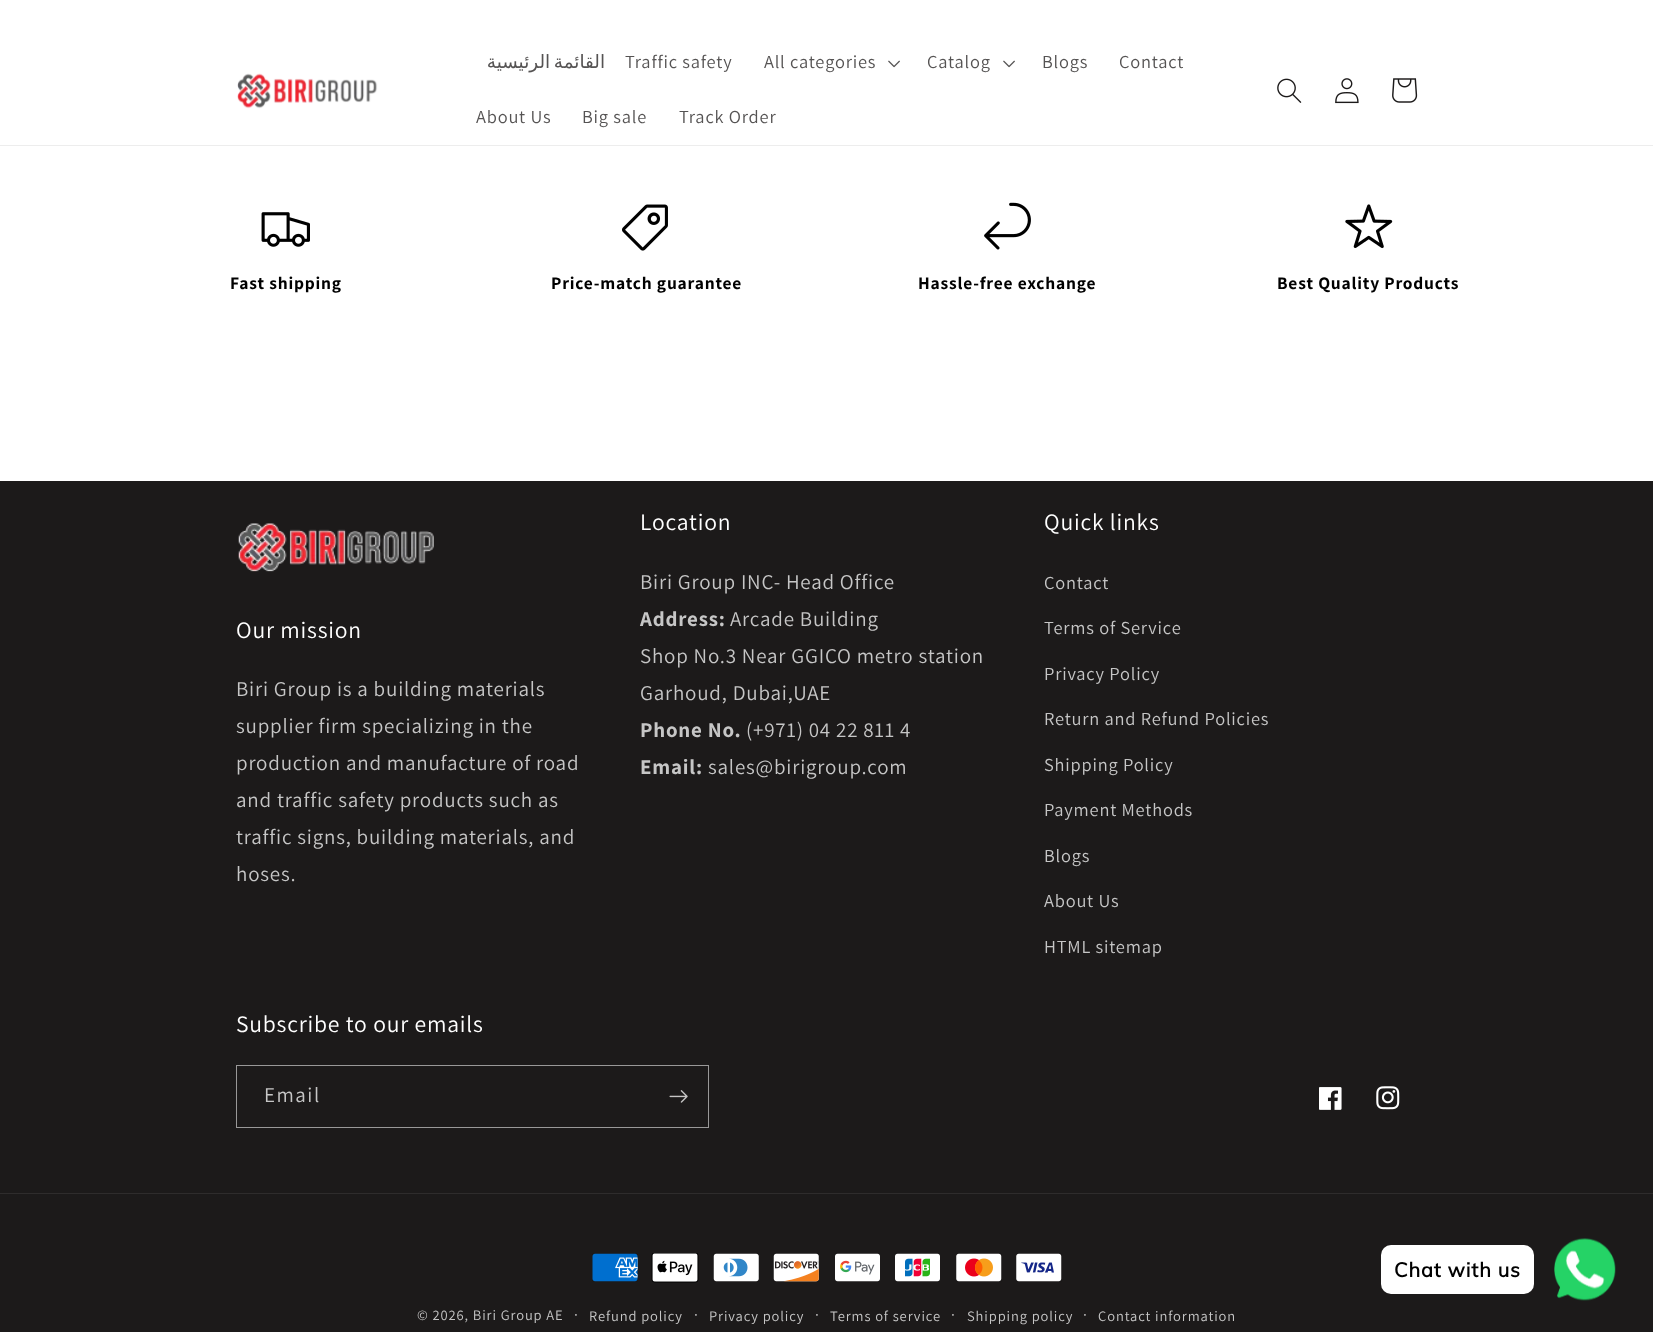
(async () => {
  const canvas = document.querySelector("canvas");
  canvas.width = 1653;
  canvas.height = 1332;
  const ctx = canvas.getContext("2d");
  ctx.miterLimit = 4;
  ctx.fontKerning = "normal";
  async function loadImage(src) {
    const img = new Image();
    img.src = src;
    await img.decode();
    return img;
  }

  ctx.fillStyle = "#ffffff";
  ctx.fillRect(0, 0, 1653, 1332);
  ctx.fillStyle = "#ededed";
  ctx.fillRect(0, 145, 1653, 1);
  ctx.drawImage(await loadImage("img/1.png"), 237, 73, 141, 36);
  ctx.drawImage(await loadImage("img/2.png"), 888, 60, 12, 8);
  ctx.drawImage(await loadImage("img/2.png"), 1003, 60, 12, 8);
  ctx.drawImage(await loadImage("img/3.png"), 1277, 78, 25, 25);
  ctx.drawImage(await loadImage("img/4.png"), 1335, 78, 24, 26);
  ctx.drawImage(await loadImage("img/5.png"), 1392, 78, 26, 25);
  ctx.drawImage(await loadImage("img/6.png"), 261, 212, 49, 35);
  ctx.drawImage(await loadImage("img/7.png"), 622, 204, 46, 47);
  ctx.drawImage(await loadImage("img/8.png"), 984, 202, 47, 48);
  ctx.drawImage(await loadImage("img/9.png"), 1345, 204, 48, 45);
  ctx.fillStyle = "#1c1a1a";
  ctx.fillRect(0, 481, 1653, 851);
  ctx.drawImage(await loadImage("img/10.png"), 238, 523, 196, 49);
  ctx.strokeStyle = "#999898";
  ctx.strokeRect(236.5, 1065.5, 472, 62);
  ctx.drawImage(await loadImage("img/11.png"), 669, 1090, 19, 13);
  ctx.drawImage(await loadImage("img/12.png"), 1319, 1087, 23, 23);
  ctx.drawImage(await loadImage("img/13.png"), 1376, 1086, 24, 24);
  ctx.fillStyle = "#2e2c2c";
  ctx.fillRect(0, 1193, 1653, 1);
  ctx.drawImage(await loadImage("img/14.png"), 592, 1253, 46, 29);
  ctx.drawImage(await loadImage("img/15.png"), 651, 1253, 48, 30);
  ctx.drawImage(await loadImage("img/16.png"), 713, 1253, 46, 29);
  ctx.drawImage(await loadImage("img/17.png"), 773, 1253, 46, 29);
  ctx.drawImage(await loadImage("img/18.png"), 835, 1253, 45, 29);
  ctx.drawImage(await loadImage("img/19.png"), 895, 1253, 45, 29);
  ctx.drawImage(await loadImage("img/20.png"), 956, 1253, 46, 29);
  ctx.drawImage(await loadImage("img/21.png"), 1016, 1253, 46, 29);
  ctx.drawImage(await loadImage("img/22.png"), 1554, 1238, 62, 63);
  ctx.fillStyle = "#ffffff";
  ctx.beginPath();
  ctx.roundRect(1381, 1245, 153, 49, 10);
  ctx.fill();
  ctx.letterSpacing = "0.8px";
  ctx.wordSpacing = "-3px";
  ctx.direction = "rtl";
  ctx.font = "18.4px DejaVu Sans";
  ctx.fillStyle = "#555353";
  ctx.fillText("القائمة الرئيسية", 605, 68);
  ctx.wordSpacing = "0px";
  ctx.direction = "ltr";
  ctx.font = "18.4px Assistant";
  for (const [text, x, y] of [
    ["Traffic safety", 625, 68],
    ["All categories", 764, 68],
    ["Catalog", 927, 68],
    ["Blogs", 1042, 68],
    ["Contact", 1119, 68],
    ["About Us", 476, 123],
    ["Big sale", 582, 123],
    ["Track Order", 679, 123],
  ]) {
    ctx.fillText(text, x, y);
  }
  ctx.font = "bold 17.5px Assistant";
  ctx.fillStyle = "#000000";
  for (const [text, x, y] of [
    ["Fast shipping", 230, 289],
    ["Price-match guarantee", 551, 289],
    ["Hassle-free exchange", 918, 289],
    ["Best Quality Products", 1277, 289],
  ]) {
    ctx.fillText(text, x, y);
  }
  ctx.font = "23.6px Assistant";
  ctx.fillStyle = "#ffffff";
  ctx.fillText("Our mission", 236, 638);
  ctx.font = "21px Assistant";
  ctx.fillStyle = "#c6c6c6";
  for (const [text, x, y] of [
    ["Biri Group is a building materials", 236, 696],
    ["supplier firm specializing in the", 236, 733],
    ["production and manufacture of road", 236, 770],
    ["and traffic safety products such as", 236, 807],
    ["traffic signs, building materials, and", 236, 844],
    ["hoses.", 236, 881],
  ]) {
    ctx.fillText(text, x, y);
  }
  ctx.font = "23.6px Assistant";
  ctx.fillStyle = "#ffffff";
  ctx.fillText("Location", 640, 530);
  ctx.font = "21px Assistant";
  ctx.fillStyle = "#c6c6c6";
  ctx.fillText("Biri Group INC- Head Office", 640, 589);
  ctx.font = "bold 21px Assistant";
  ctx.fillText("Address:", 640, 626);
  ctx.font = "21px Assistant";
  for (const [text, x, y] of [
    ["Arcade Building", 730, 626],
    ["Shop No.3 Near GGICO metro station", 640, 663],
    ["Garhoud, Dubai,UAE", 640, 700],
  ]) {
    ctx.fillText(text, x, y);
  }
  ctx.font = "bold 21px Assistant";
  ctx.fillText("Phone No.", 640, 737);
  ctx.font = "21px Assistant";
  ctx.fillText("(+971) 04 22 811 4", 746, 737);
  ctx.font = "bold 21px Assistant";
  ctx.fillText("Email:", 640, 774);
  ctx.font = "21px Assistant";
  ctx.fillText("sales@birigroup.com", 708, 774);
  ctx.font = "23.6px Assistant";
  ctx.fillStyle = "#ffffff";
  ctx.fillText("Quick links", 1044, 530);
  ctx.font = "18.4px Assistant";
  ctx.fillStyle = "#c6c6c6";
  for (const [text, x, y] of [
    ["Contact", 1044, 589],
    ["Terms of Service", 1044, 634],
    ["Privacy Policy", 1044, 680],
    ["Return and Refund Policies", 1044, 725],
    ["Shipping Policy", 1044, 771],
    ["Payment Methods", 1044, 816],
    ["Blogs", 1044, 862],
    ["About Us", 1044, 907],
    ["HTML sitemap", 1044, 953],
  ]) {
    ctx.fillText(text, x, y);
  }
  ctx.font = "23.6px Assistant";
  ctx.fillStyle = "#ffffff";
  ctx.fillText("Subscribe to our emails", 236, 1032);
  ctx.letterSpacing = "1.5px";
  ctx.font = "21px Assistant";
  ctx.fillStyle = "#c6c6c6";
  ctx.fillText("Email", 264, 1102);
  ctx.letterSpacing = "0.9px";
  ctx.font = "14.5px Assistant";
  ctx.fillText("© 2026, Biri Group AE", 417, 1320);
  ctx.font = "16px Assistant";
  ctx.fillText("·", 574, 1320);
  ctx.font = "14.5px Assistant";
  ctx.fillText("Refund policy", 589, 1321);
  ctx.font = "16px Assistant";
  ctx.fillText("·", 694, 1320);
  ctx.font = "14.5px Assistant";
  ctx.fillText("Privacy policy", 709, 1321);
  ctx.font = "16px Assistant";
  ctx.fillText("·", 815, 1320);
  ctx.font = "14.5px Assistant";
  ctx.fillText("Terms of service", 830, 1321);
  ctx.font = "16px Assistant";
  ctx.fillText("·", 951, 1320);
  ctx.font = "14.5px Assistant";
  ctx.fillText("Shipping policy", 967, 1321);
  ctx.font = "16px Assistant";
  ctx.fillText("·", 1083, 1320);
  ctx.font = "14.5px Assistant";
  ctx.fillText("Contact information", 1098, 1321);
  ctx.letterSpacing = "0.8px";
  ctx.font = "bold 20px Muli";
  ctx.fillStyle = "#000000";
  ctx.fillText("Chat with us", 1394, 1277);
})();
